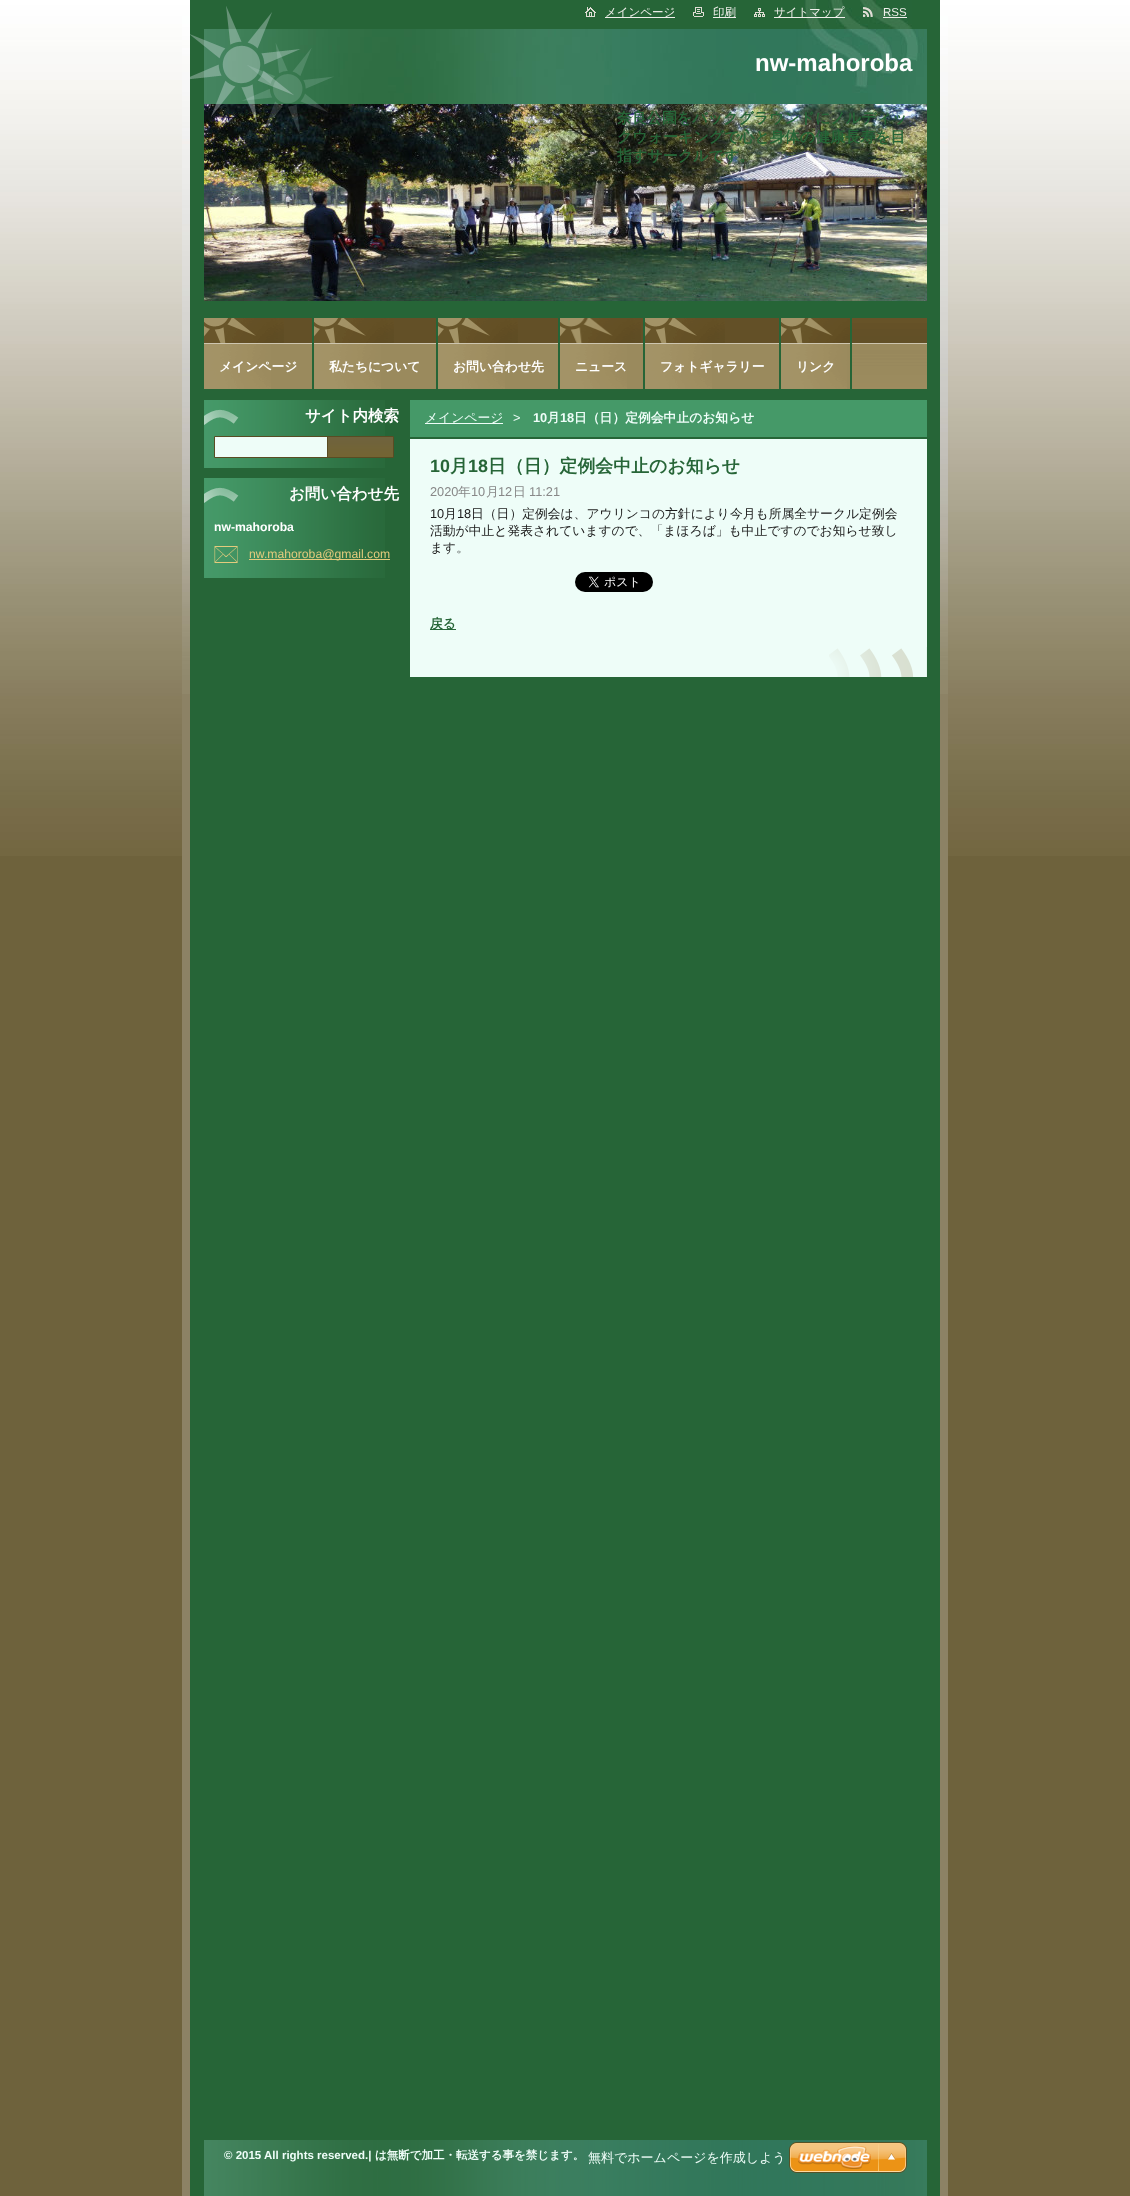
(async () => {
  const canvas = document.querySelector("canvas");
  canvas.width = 1130;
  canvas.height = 2196;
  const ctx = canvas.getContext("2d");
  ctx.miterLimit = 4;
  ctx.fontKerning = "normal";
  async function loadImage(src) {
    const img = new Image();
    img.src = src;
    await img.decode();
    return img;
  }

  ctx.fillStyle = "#6e623c";
  ctx.fillRect(0, 0, 1130, 2196);
  ctx.drawImage(await loadImage("img/1.png"), 0, 0, 1130, 856);
  ctx.fillStyle = "#8c8265";
  ctx.fillRect(182, 694, 766, 1502);
  ctx.drawImage(await loadImage("img/2.png"), 182, 0, 766, 694);
  ctx.fillStyle = "#266537";
  ctx.fillRect(190, 0, 750, 2196);
  ctx.drawImage(await loadImage("img/3.png"), 804, 0, 108, 29);
  ctx.drawImage(await loadImage("img/9.png"), 204, 29, 723, 75);
  ctx.drawImage(await loadImage("img/10.png"), 204, 104, 723, 197);
  ctx.drawImage(await loadImage("img/4.png"), 190, 6, 144, 128);
  ctx.drawImage(await loadImage("img/5.png"), 585, 7, 11, 10);
  ctx.fillStyle = "#f0efeb";
  ctx.fillRect(605, 17, 70, 1);
  ctx.drawImage(await loadImage("img/6.png"), 693, 7, 11, 10);
  ctx.fillRect(713, 17, 23, 1);
  ctx.drawImage(await loadImage("img/7.png"), 754, 8, 11, 9);
  ctx.fillRect(774, 17, 71, 1);
  ctx.drawImage(await loadImage("img/8.png"), 863, 7, 10, 10);
  ctx.fillRect(883, 17, 24, 1);
  ctx.drawImage(await loadImage("img/11.png"), 852, 318, 75, 71);
  ctx.fillStyle = "#635027";
  ctx.fillRect(284, 318, 28, 25);
  ctx.drawImage(await loadImage("img/12.png"), 204, 318, 80, 25);
  ctx.fillStyle = "#9a8a5d";
  ctx.fillRect(271, 344, 41, 45);
  ctx.drawImage(await loadImage("img/13.png"), 204, 344, 67, 45);
  ctx.fillStyle = "#cdc5af";
  ctx.fillRect(204, 343, 108, 1);
  ctx.fillStyle = "#635027";
  ctx.fillRect(394, 318, 42, 25);
  ctx.drawImage(await loadImage("img/12.png"), 314, 318, 80, 25);
  ctx.fillStyle = "#9a8a5d";
  ctx.fillRect(381, 344, 55, 45);
  ctx.drawImage(await loadImage("img/13.png"), 314, 344, 67, 45);
  ctx.fillStyle = "#cdc5af";
  ctx.fillRect(314, 343, 122, 1);
  ctx.fillStyle = "#635027";
  ctx.fillRect(518, 318, 40, 25);
  ctx.drawImage(await loadImage("img/12.png"), 438, 318, 80, 25);
  ctx.fillStyle = "#9a8a5d";
  ctx.fillRect(505, 344, 53, 45);
  ctx.drawImage(await loadImage("img/13.png"), 438, 344, 67, 45);
  ctx.fillStyle = "#cdc5af";
  ctx.fillRect(438, 343, 120, 1);
  ctx.fillStyle = "#635027";
  ctx.fillRect(641, 318, 2, 25);
  ctx.drawImage(await loadImage("img/14.png"), 560, 318, 81, 25);
  ctx.fillStyle = "#9a8a5d";
  ctx.fillRect(627, 344, 16, 45);
  ctx.drawImage(await loadImage("img/15.png"), 560, 344, 67, 45);
  ctx.fillStyle = "#cdc5af";
  ctx.fillRect(560, 343, 83, 1);
  ctx.fillStyle = "#635027";
  ctx.fillRect(725, 318, 54, 25);
  ctx.drawImage(await loadImage("img/12.png"), 645, 318, 80, 25);
  ctx.fillStyle = "#9a8a5d";
  ctx.fillRect(712, 344, 67, 45);
  ctx.drawImage(await loadImage("img/13.png"), 645, 344, 67, 45);
  ctx.fillStyle = "#cdc5af";
  ctx.fillRect(645, 343, 134, 1);
  ctx.drawImage(await loadImage("img/16.png"), 781, 318, 69, 25);
  ctx.fillStyle = "#9a8a5d";
  ctx.fillRect(847, 344, 3, 45);
  ctx.drawImage(await loadImage("img/17.png"), 781, 344, 66, 45);
  ctx.fillStyle = "#cdc5af";
  ctx.fillRect(781, 343, 69, 1);
  ctx.drawImage(await loadImage("img/18.png"), 204, 400, 181, 68);
  ctx.drawImage(await loadImage("img/19.png"), 204, 409, 35, 16);
  ctx.drawImage(await loadImage("img/20.png"), 214, 436, 180, 22);
  ctx.drawImage(await loadImage("img/21.png"), 204, 478, 181, 100);
  ctx.drawImage(await loadImage("img/19.png"), 204, 487, 35, 16);
  ctx.drawImage(await loadImage("img/22.png"), 214, 546, 24, 17);
  for (const [x, y, w, h, color] of [
    [249, 559, 141, 1, "#e4cb7d"],
    [410, 400, 517, 37, "#459968"],
    [425, 423, 78, 1, "#eefdf8"],
    [410, 439, 517, 238, "#eefdf8"],
  ]) {
    ctx.fillStyle = color;
    ctx.fillRect(x, y, w, h);
  }
  ctx.drawImage(await loadImage("img/23.png"), 829, 647, 98, 30);
  ctx.drawImage(await loadImage("img/24.png"), 575, 572, 78, 20);
  ctx.fillStyle = "#266537";
  ctx.fillRect(430, 629, 26, 1);
  ctx.drawImage(await loadImage("img/25.png"), 204, 2140, 723, 56);
  ctx.drawImage(await loadImage("img/26.png"), 789, 2142, 118, 31);
  ctx.font = "500 11.5px WenQuanYi Zen Hei";
  ctx.fillStyle = "#f0efeb";
  for (const [text, x, y] of [
    ["メインページ", 605, 16],
    ["印刷", 713, 16],
    ["サイトマップ", 774, 16],
  ]) {
    ctx.fillText(text, x, y);
  }
  ctx.font = "11.5px Liberation Sans";
  ctx.fillText("RSS", 883, 16);
  ctx.font = "bold 24px Liberation Sans";
  ctx.fillStyle = "#ffffff";
  ctx.fillText("nw-mahoroba", 755, 71);
  ctx.font = "bold 15px WenQuanYi Zen Hei";
  ctx.fillStyle = "#266537";
  for (const [text, x, y] of [
    ["奈良公園をバックグラウンドにノルディッ", 617, 123],
    ["クウォーキングで心と身体の健康長寿を目", 617, 142],
    ["指すサークルです。", 617, 161],
  ]) {
    ctx.fillText(text, x, y);
  }
  ctx.font = "bold 12.8px WenQuanYi Zen Hei";
  ctx.fillStyle = "#ffffff";
  for (const [text, x, y] of [
    ["メインページ", 219, 371],
    ["私たちについて", 329, 371],
    ["お問い合わせ先", 453, 371],
    ["ニュース", 575, 371],
    ["フォトギャラリー", 660, 371],
    ["リンク", 796, 371],
  ]) {
    ctx.fillText(text, x, y);
  }
  ctx.font = "bold 15.5px WenQuanYi Zen Hei";
  ctx.fillText("サイト内検索", 305, 421);
  ctx.fillText("お問い合わせ先", 289, 499);
  ctx.font = "bold 12.2px Liberation Sans";
  ctx.fillText("nw-mahoroba", 214, 531);
  ctx.font = "12.2px Liberation Sans";
  ctx.fillStyle = "#e4cb7d";
  ctx.fillText("nw.mahoroba@gmail.com", 249, 558);
  ctx.font = "500 12.8px WenQuanYi Zen Hei";
  ctx.fillStyle = "#eefdf8";
  ctx.fillText("メインページ", 425, 422);
  ctx.font = "12.8px Liberation Sans";
  ctx.fillText(">", 513, 422);
  ctx.font = "bold 12.8px Liberation Sans";
  ctx.fillText("10", 533, 422);
  ctx.font = "bold 12.8px WenQuanYi Zen Hei";
  ctx.fillText("月", 547, 422);
  ctx.font = "bold 12.8px Liberation Sans";
  ctx.fillText("18", 560, 422);
  ctx.font = "bold 12.8px WenQuanYi Zen Hei";
  ctx.fillText("日（日）定例会中止のお知らせ", 574, 422);
  ctx.font = "bold 17.9px Liberation Sans";
  ctx.fillStyle = "#266537";
  ctx.fillText("10", 430, 472);
  ctx.font = "bold 17.9px WenQuanYi Zen Hei";
  ctx.fillText("月", 450, 472);
  ctx.font = "bold 17.9px Liberation Sans";
  ctx.fillText("18", 468, 472);
  ctx.font = "bold 17.9px WenQuanYi Zen Hei";
  ctx.fillText("日（日）定例会中止のお知らせ", 488, 472);
  ctx.font = "12.8px Liberation Sans";
  ctx.fillStyle = "#888888";
  ctx.fillText("2020", 430, 496);
  ctx.font = "500 12.8px WenQuanYi Zen Hei";
  ctx.fillText("年", 458, 496);
  ctx.font = "12.8px Liberation Sans";
  ctx.fillText("10", 471, 496);
  ctx.font = "500 12.8px WenQuanYi Zen Hei";
  ctx.fillText("月", 486, 496);
  ctx.font = "12.8px Liberation Sans";
  ctx.fillText("12", 498, 496);
  ctx.font = "500 12.8px WenQuanYi Zen Hei";
  ctx.fillText("日", 513, 496);
  ctx.font = "12.8px Liberation Sans";
  ctx.fillText("11:21", 529, 496);
  ctx.fillStyle = "#1b1b1b";
  ctx.fillText("10", 430, 518);
  ctx.font = "500 12.8px WenQuanYi Zen Hei";
  ctx.fillText("月", 444, 518);
  ctx.font = "12.8px Liberation Sans";
  ctx.fillText("18", 457, 518);
  ctx.font = "500 12.8px WenQuanYi Zen Hei";
  for (const [text, x, y] of [
    ["日（日）定例会は、アウリンコの方針により今月も所属全サークル定例会", 471, 518],
    ["活動が中止と発表されていますので、「まほろば」も中止ですのでお知らせ致し", 430, 535],
    ["ます。", 430, 552],
  ]) {
    ctx.fillText(text, x, y);
  }
  ctx.font = "bold 12.8px WenQuanYi Zen Hei";
  ctx.fillStyle = "#266537";
  ctx.fillText("戻る", 430, 628);
  ctx.font = "bold 11.5px Liberation Sans";
  ctx.fillStyle = "#eefdf8";
  ctx.fillText("© 2015 All rights reserved.|", 224, 2159);
  ctx.font = "bold 11.5px WenQuanYi Zen Hei";
  ctx.fillText("は無断で加工・転送する事を禁じます。", 375, 2159);
  ctx.font = "500 13px WenQuanYi Zen Hei";
  ctx.fillText("無料でホームページを作成しよう", 588, 2162);
})();
